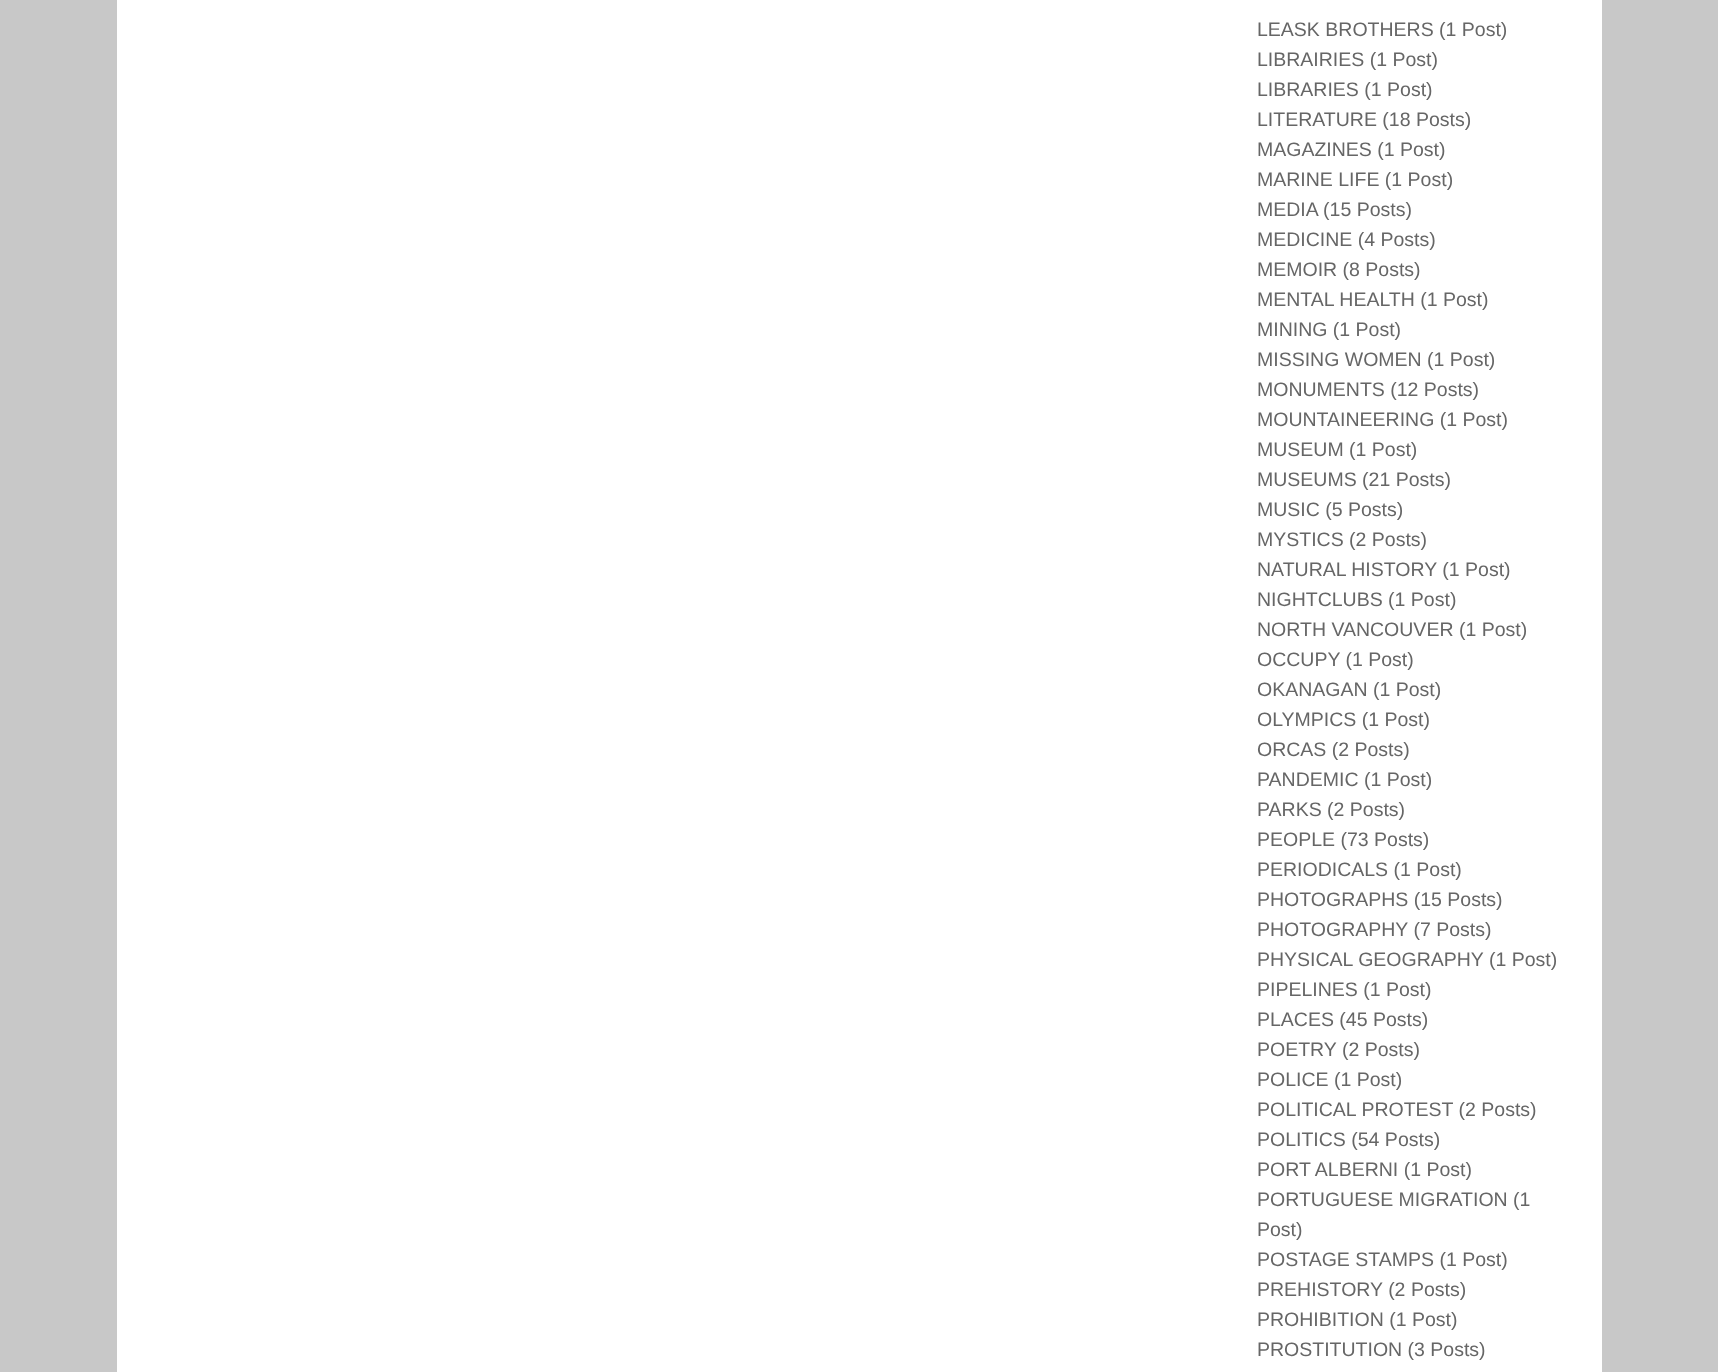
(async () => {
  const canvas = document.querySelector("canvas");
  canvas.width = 1718;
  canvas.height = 1372;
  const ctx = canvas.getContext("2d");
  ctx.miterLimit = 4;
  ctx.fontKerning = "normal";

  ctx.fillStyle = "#c8c8c8";
  ctx.fillRect(0, 0, 1718, 1372);
  ctx.fillStyle = "#ffffff";
  ctx.fillRect(117, 0, 1485, 1372);
  ctx.font = "19.5px Liberation Sans";
  ctx.fillStyle = "#666666";
  for (const [text, x, y] of [
    ["LEASK BROTHERS (1 Post)", 1257, 36],
    ["LIBRAIRIES (1 Post)", 1257, 66],
    ["LIBRARIES (1 Post)", 1257, 96],
    ["LITERATURE (18 Posts)", 1257, 126],
    ["MAGAZINES (1 Post)", 1257, 156],
    ["MARINE LIFE (1 Post)", 1257, 186],
    ["MEDIA (15 Posts)", 1257, 216],
    ["MEDICINE (4 Posts)", 1257, 246],
    ["MEMOIR (8 Posts)", 1257, 276],
    ["MENTAL HEALTH (1 Post)", 1257, 306],
    ["MINING (1 Post)", 1257, 336],
    ["MISSING WOMEN (1 Post)", 1257, 366],
    ["MONUMENTS (12 Posts)", 1257, 396],
    ["MOUNTAINEERING (1 Post)", 1257, 426],
    ["MUSEUM (1 Post)", 1257, 456],
    ["MUSEUMS (21 Posts)", 1257, 486],
    ["MUSIC (5 Posts)", 1257, 516],
    ["MYSTICS (2 Posts)", 1257, 546],
    ["NATURAL HISTORY (1 Post)", 1257, 576],
    ["NIGHTCLUBS (1 Post)", 1257, 606],
    ["NORTH VANCOUVER (1 Post)", 1257, 636],
    ["OCCUPY (1 Post)", 1257, 666],
    ["OKANAGAN (1 Post)", 1257, 696],
    ["OLYMPICS (1 Post)", 1257, 726],
    ["ORCAS (2 Posts)", 1257, 756],
    ["PANDEMIC (1 Post)", 1257, 786],
    ["PARKS (2 Posts)", 1257, 816],
    ["PEOPLE (73 Posts)", 1257, 846],
    ["PERIODICALS (1 Post)", 1257, 876],
    ["PHOTOGRAPHS (15 Posts)", 1257, 906],
    ["PHOTOGRAPHY (7 Posts)", 1257, 936],
    ["PHYSICAL GEOGRAPHY (1 Post)", 1257, 966],
    ["PIPELINES (1 Post)", 1257, 996],
    ["PLACES (45 Posts)", 1257, 1026],
    ["POETRY (2 Posts)", 1257, 1056],
    ["POLICE (1 Post)", 1257, 1086],
    ["POLITICAL PROTEST (2 Posts)", 1257, 1116],
    ["POLITICS (54 Posts)", 1257, 1146],
    ["PORT ALBERNI (1 Post)", 1257, 1176],
    ["PORTUGUESE MIGRATION (1", 1257, 1206],
    ["Post)", 1257, 1236],
    ["POSTAGE STAMPS (1 Post)", 1257, 1266],
    ["PREHISTORY (2 Posts)", 1257, 1296],
    ["PROHIBITION (1 Post)", 1257, 1326],
    ["PROSTITUTION (3 Posts)", 1257, 1356],
  ]) {
    ctx.fillText(text, x, y);
  }
})();
